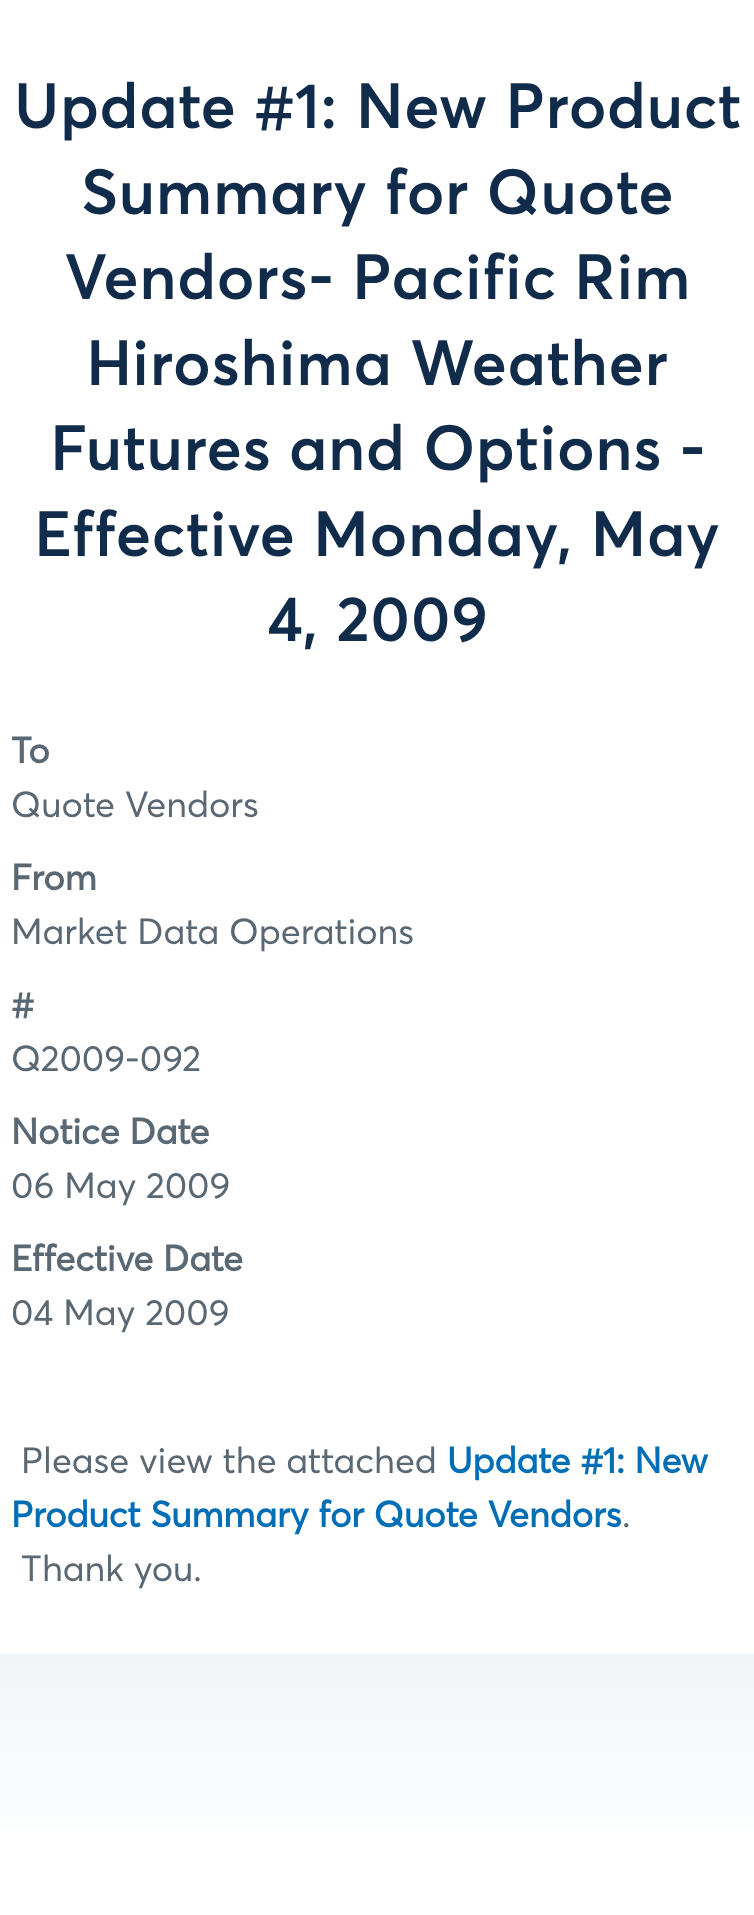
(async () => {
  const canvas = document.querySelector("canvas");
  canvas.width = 754;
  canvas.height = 1915;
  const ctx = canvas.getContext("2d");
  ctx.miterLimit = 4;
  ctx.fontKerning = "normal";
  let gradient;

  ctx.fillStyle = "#ffffff";
  ctx.fillRect(0, 0, 754, 1915);
  gradient = ctx.createLinearGradient(378, 1654, 378, 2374);
  gradient.addColorStop(0, "#f1f5f7");
  gradient.addColorStop(0.3, "#ffffff");
  gradient.addColorStop(1, "#ffffff");
  ctx.fillStyle = gradient;
  ctx.fillRect(0, 1654, 754, 177);
  ctx.letterSpacing = "0.6px";
  ctx.font = "63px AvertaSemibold";
  ctx.fillStyle = "#112b4a";
  for (const [text, x, y] of [
    ["Update #1: New Product", 14, 128],
    ["Summary for Quote", 81, 214],
    ["Vendors- Pacific Rim", 64, 299],
    ["Hiroshima Weather", 86, 385],
    ["Futures and Options -", 50, 470],
    ["Effective Monday, May", 34, 556],
    ["4, 2009", 267, 641],
  ]) {
    ctx.fillText(text, x, y);
  }
  ctx.letterSpacing = "0px";
  ctx.font = "bold 36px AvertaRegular";
  ctx.fillStyle = "#5a6874";
  ctx.fillText("To", 11, 763);
  ctx.font = "36px AvertaRegular";
  ctx.fillText("Quote Vendors", 11, 817);
  ctx.font = "bold 36px AvertaRegular";
  ctx.fillText("From", 11, 890);
  ctx.font = "36px AvertaRegular";
  ctx.fillText("Market Data Operations", 11, 944);
  ctx.font = "bold 36px AvertaRegular";
  ctx.fillText("#", 11, 1017);
  ctx.font = "36px AvertaRegular";
  ctx.fillText("Q2009-092", 11, 1071);
  ctx.font = "bold 36px AvertaRegular";
  ctx.fillText("Notice Date", 11, 1144);
  ctx.font = "36px AvertaRegular";
  ctx.fillText("06 May 2009", 11, 1198);
  ctx.font = "bold 36px AvertaRegular";
  ctx.fillText("Effective Date", 11, 1271);
  ctx.font = "36px AvertaRegular";
  ctx.fillText("04 May 2009", 11, 1325);
  ctx.fillText("Please view the attached", 21, 1473);
  ctx.font = "bold 36px AvertaRegular";
  ctx.fillStyle = "#006eb6";
  ctx.fillText("Update #1: New", 447, 1473);
  ctx.fillText("Product Summary for Quote Vendors", 11, 1527);
  ctx.font = "36px AvertaRegular";
  ctx.fillStyle = "#5a6874";
  ctx.fillText(".", 622, 1527);
  ctx.fillText("Thank you.", 21, 1581);
})();
